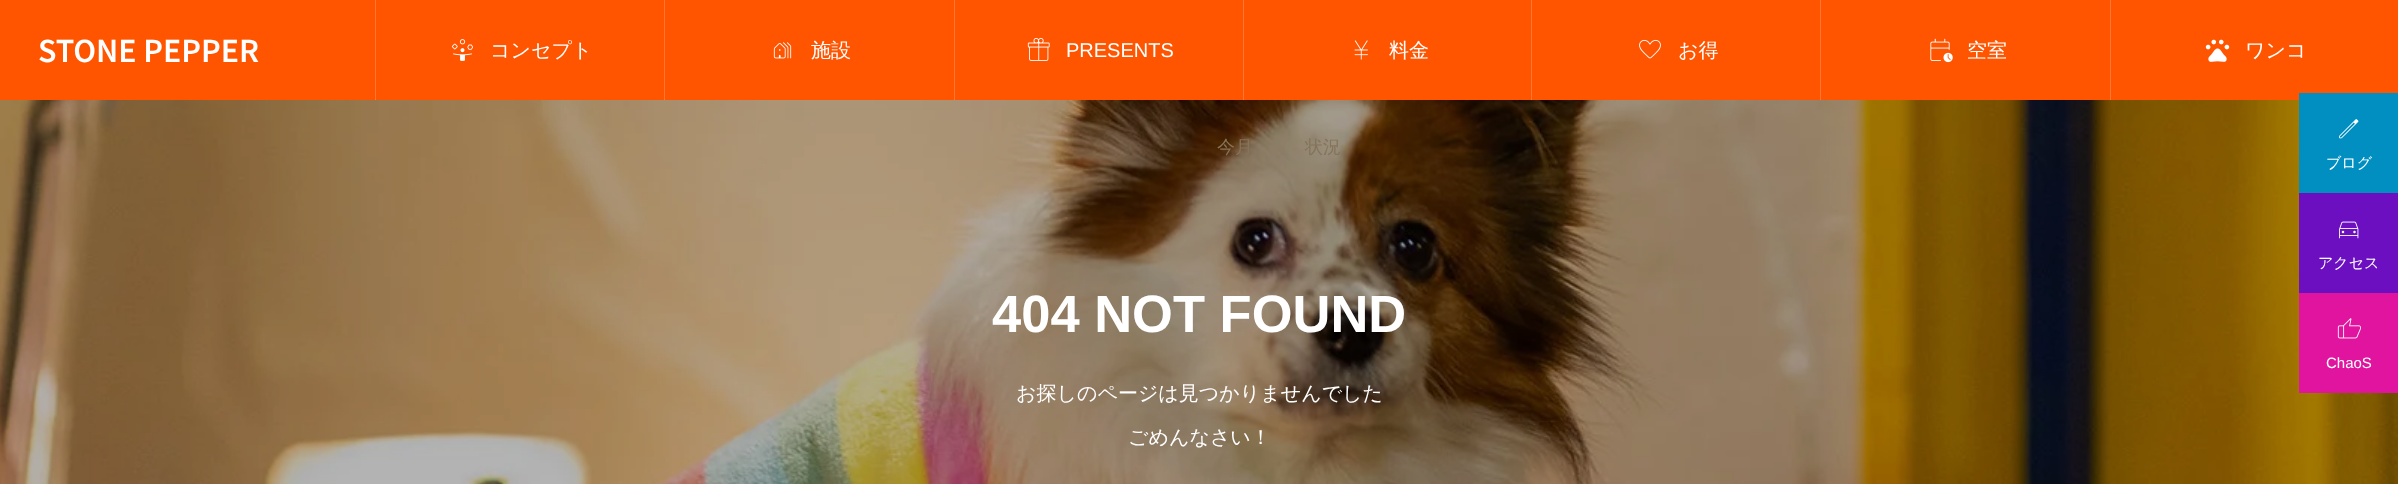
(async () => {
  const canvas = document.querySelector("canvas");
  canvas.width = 2398;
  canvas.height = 484;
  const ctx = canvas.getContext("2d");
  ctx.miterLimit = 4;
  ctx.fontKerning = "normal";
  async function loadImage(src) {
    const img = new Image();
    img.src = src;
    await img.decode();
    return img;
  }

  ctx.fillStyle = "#ffffff";
  ctx.fillRect(0, 0, 2398, 484);
  ctx.fillStyle = "#ff5500";
  ctx.fillRect(0, 0, 2398, 100);
  ctx.fillStyle = "#ff7733";
  ctx.fillRect(375, 0, 1, 100);
  ctx.drawImage(await loadImage("img/1.png"), 451, 39, 22, 22);
  ctx.fillRect(664, 0, 1, 100);
  ctx.drawImage(await loadImage("img/2.png"), 773, 42, 19, 17);
  ctx.fillRect(954, 0, 1, 100);
  ctx.drawImage(await loadImage("img/3.png"), 1027, 37, 23, 24);
  ctx.fillRect(1243, 0, 1, 100);
  ctx.drawImage(await loadImage("img/4.png"), 1354, 40, 14, 20);
  ctx.fillRect(1531, 0, 1, 100);
  ctx.drawImage(await loadImage("img/5.png"), 1639, 39, 22, 20);
  ctx.fillRect(1820, 0, 1, 100);
  ctx.drawImage(await loadImage("img/6.png"), 1930, 38, 23, 25);
  ctx.fillRect(2110, 0, 1, 100);
  ctx.drawImage(await loadImage("img/7.png"), 2205, 39, 25, 23);
  ctx.drawImage(await loadImage("img/8.png"), 0, 100, 2398, 384);
  ctx.fillStyle = "#018fc2";
  ctx.fillRect(2299, 93, 99, 100);
  ctx.drawImage(await loadImage("img/9.png"), 2339, 119, 20, 20);
  ctx.fillStyle = "#6b0fc1";
  ctx.fillRect(2299, 193, 99, 100);
  ctx.drawImage(await loadImage("img/10.png"), 2339, 221, 20, 18);
  ctx.fillStyle = "#e0149f";
  ctx.fillRect(2299, 293, 99, 100);
  ctx.drawImage(await loadImage("img/11.png"), 2337, 318, 24, 21);
  ctx.font = "600 30px Noto Sans JP";
  ctx.fillStyle = "#ffffff";
  ctx.fillText("STONE PEPPER", 38, 62);
  ctx.font = "500 20px WenQuanYi Zen Hei";
  ctx.fillText("コンセプト", 490, 57);
  ctx.fillText("施設", 811, 57);
  ctx.font = "20px Liberation Sans";
  ctx.fillText("PRESENTS", 1066, 57);
  ctx.font = "500 20px WenQuanYi Zen Hei";
  for (const [text, x, y] of [
    ["料金", 1389, 57],
    ["お得", 1678, 57],
    ["空室", 1967, 57],
    ["ワンコ", 2245, 57],
  ]) {
    ctx.fillText(text, x, y);
  }
  ctx.font = "500 18px WenQuanYi Zen Hei";
  ctx.fillStyle = "#85735b";
  ctx.fillText("今月", 1217, 153);
  ctx.fillText("状況", 1305, 153);
  ctx.font = "bold 52.5px Liberation Sans";
  ctx.fillStyle = "#ffffff";
  ctx.fillText("404 NOT FOUND", 992, 332);
  ctx.font = "500 20px WenQuanYi Zen Hei";
  ctx.fillText("お探しのページは見つかりませんでした", 1016, 400);
  ctx.fillText("ごめんなさい！", 1128, 444);
  ctx.font = "500 15px WenQuanYi Zen Hei";
  ctx.fillText("ブログ", 2326, 168);
  ctx.fillText("アクセス", 2318, 268);
  ctx.font = "15px Liberation Sans";
  ctx.fillText("ChaoS", 2326, 368);
})();
